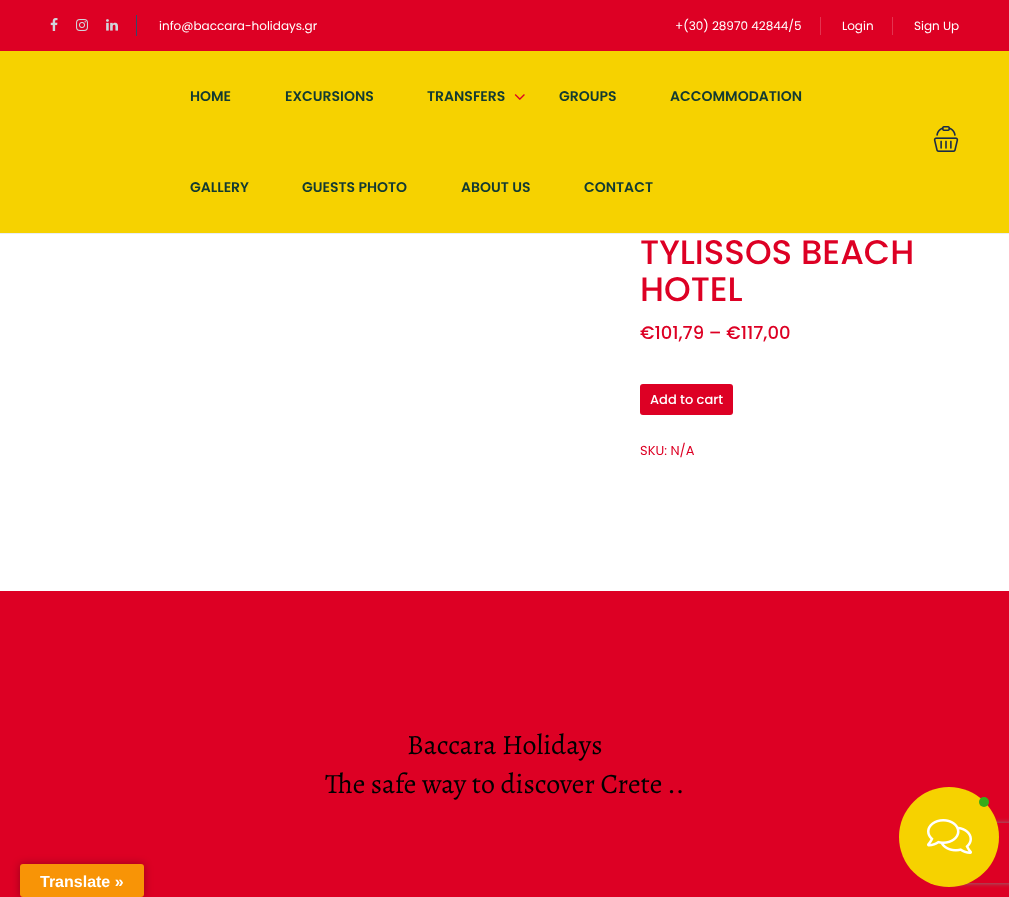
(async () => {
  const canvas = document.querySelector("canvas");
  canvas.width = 1009;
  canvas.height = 897;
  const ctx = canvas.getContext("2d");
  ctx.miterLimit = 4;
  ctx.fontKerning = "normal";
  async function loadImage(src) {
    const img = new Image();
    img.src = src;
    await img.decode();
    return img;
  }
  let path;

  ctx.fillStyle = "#ffffff";
  ctx.fillRect(0, 0, 1009, 897);
  ctx.fillStyle = "#dd0024";
  ctx.fillRect(0, 0, 1009, 51);
  ctx.fillStyle = "#374969";
  ctx.fillRect(136, 15, 1, 21);
  ctx.drawImage(await loadImage("img/1.png"), 50, 18, 8, 13);
  ctx.drawImage(await loadImage("img/2.png"), 76, 19, 12, 12);
  ctx.drawImage(await loadImage("img/3.png"), 106, 19, 12, 12);
  for (const [x, y, w, h, color] of [
    [820, 17, 1, 18, "#e43350"],
    [892, 17, 1, 18, "#e43350"],
    [0, 51, 1009, 182, "#f6d200"],
    [0, 233, 1009, 1, "#eaeef3"],
  ]) {
    ctx.fillStyle = color;
    ctx.fillRect(x, y, w, h);
  }
  ctx.drawImage(await loadImage("img/4.png"), 514, 94, 11, 6);
  ctx.drawImage(await loadImage("img/5.png"), 933, 126, 26, 26);
  ctx.fillStyle = "#dd0024";
  ctx.beginPath();
  ctx.roundRect(640, 384, 93, 31, 3);
  ctx.fill();
  ctx.fillRect(0, 591, 1009, 306);
  ctx.save();
  path = new Path2D("M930 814H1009V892H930ZM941 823H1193C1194 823 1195 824 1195 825V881C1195 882 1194 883 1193 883H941C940 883 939 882 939 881V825C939 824 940 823 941 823Z");
  ctx.clip(path, "evenodd");
  ctx.fillStyle = "#808080";
  ctx.filter = "blur(2.5px)";
  ctx.beginPath();
  ctx.roundRect(939, 823, 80, 60, 2);
  ctx.fill();
  ctx.filter = "none";
  ctx.restore();
  ctx.fillStyle = "#f6d200";
  ctx.beginPath();
  ctx.arc(949, 837, 50, 0, Math.PI * 2);
  ctx.fill();
  ctx.fillStyle = "#35ac19";
  ctx.beginPath();
  ctx.arc(984, 802, 5, 0, Math.PI * 2);
  ctx.fill();
  ctx.drawImage(await loadImage("img/6.png"), 927, 819, 45, 35);
  ctx.fillStyle = "rgba(0, 0, 0, 0.3)";
  ctx.filter = "blur(4.5px)";
  ctx.beginPath();
  ctx.roundRect(20, 864, 124, 33, 3);
  ctx.fill();
  ctx.filter = "none";
  ctx.fillStyle = "#f89406";
  ctx.beginPath();
  ctx.roundRect(20, 864, 124, 33, 3);
  ctx.fill();
  ctx.font = "12px Poppins";
  ctx.fillStyle = "#ffffff";
  for (const [text, x, y] of [
    ["info@baccara-holidays.gr", 159, 30],
    ["+(30) 28970 42844/5", 675, 30],
    ["Login", 842, 30],
    ["Sign Up", 914, 30],
  ]) {
    ctx.fillText(text, x, y);
  }
  ctx.font = "600 14px Poppins";
  ctx.fillStyle = "#123a32";
  for (const [text, x, y] of [
    ["HOME", 190, 101],
    ["EXCURSIONS", 285, 101],
    ["TRANSFERS", 427, 101],
    ["GROUPS", 559, 101],
    ["ACCOMMODATION", 670, 101],
    ["GALLERY", 190, 192],
    ["GUESTS PHOTO", 302, 192],
    ["ABOUT US", 461, 192],
    ["CONTACT", 584, 192],
  ]) {
    ctx.fillText(text, x, y);
  }
  ctx.font = "500 34px Poppins";
  ctx.fillStyle = "#dd0024";
  ctx.fillText("TYLISSOS BEACH", 640, 264);
  ctx.fillText("HOTEL", 640, 301);
  ctx.font = "500 18px Poppins";
  ctx.fillText("€101,79 – €117,00", 640, 339);
  ctx.font = "500 13px Poppins";
  ctx.fillStyle = "#ffffff";
  ctx.fillText("Add to cart", 650, 404);
  ctx.font = "13px Poppins";
  ctx.fillStyle = "#dd0024";
  ctx.fillText("SKU: N/A", 640, 455);
  ctx.font = "28px Alegreya";
  ctx.fillStyle = "#000000";
  ctx.fillText("Baccara Holidays", 407, 754);
  ctx.fillText("The safe way to discover Crete ..", 325, 793);
  ctx.font = "bold 16px Liberation Sans";
  ctx.fillStyle = "#ffffff";
  ctx.fillText("Translate »", 40, 887);
})();
